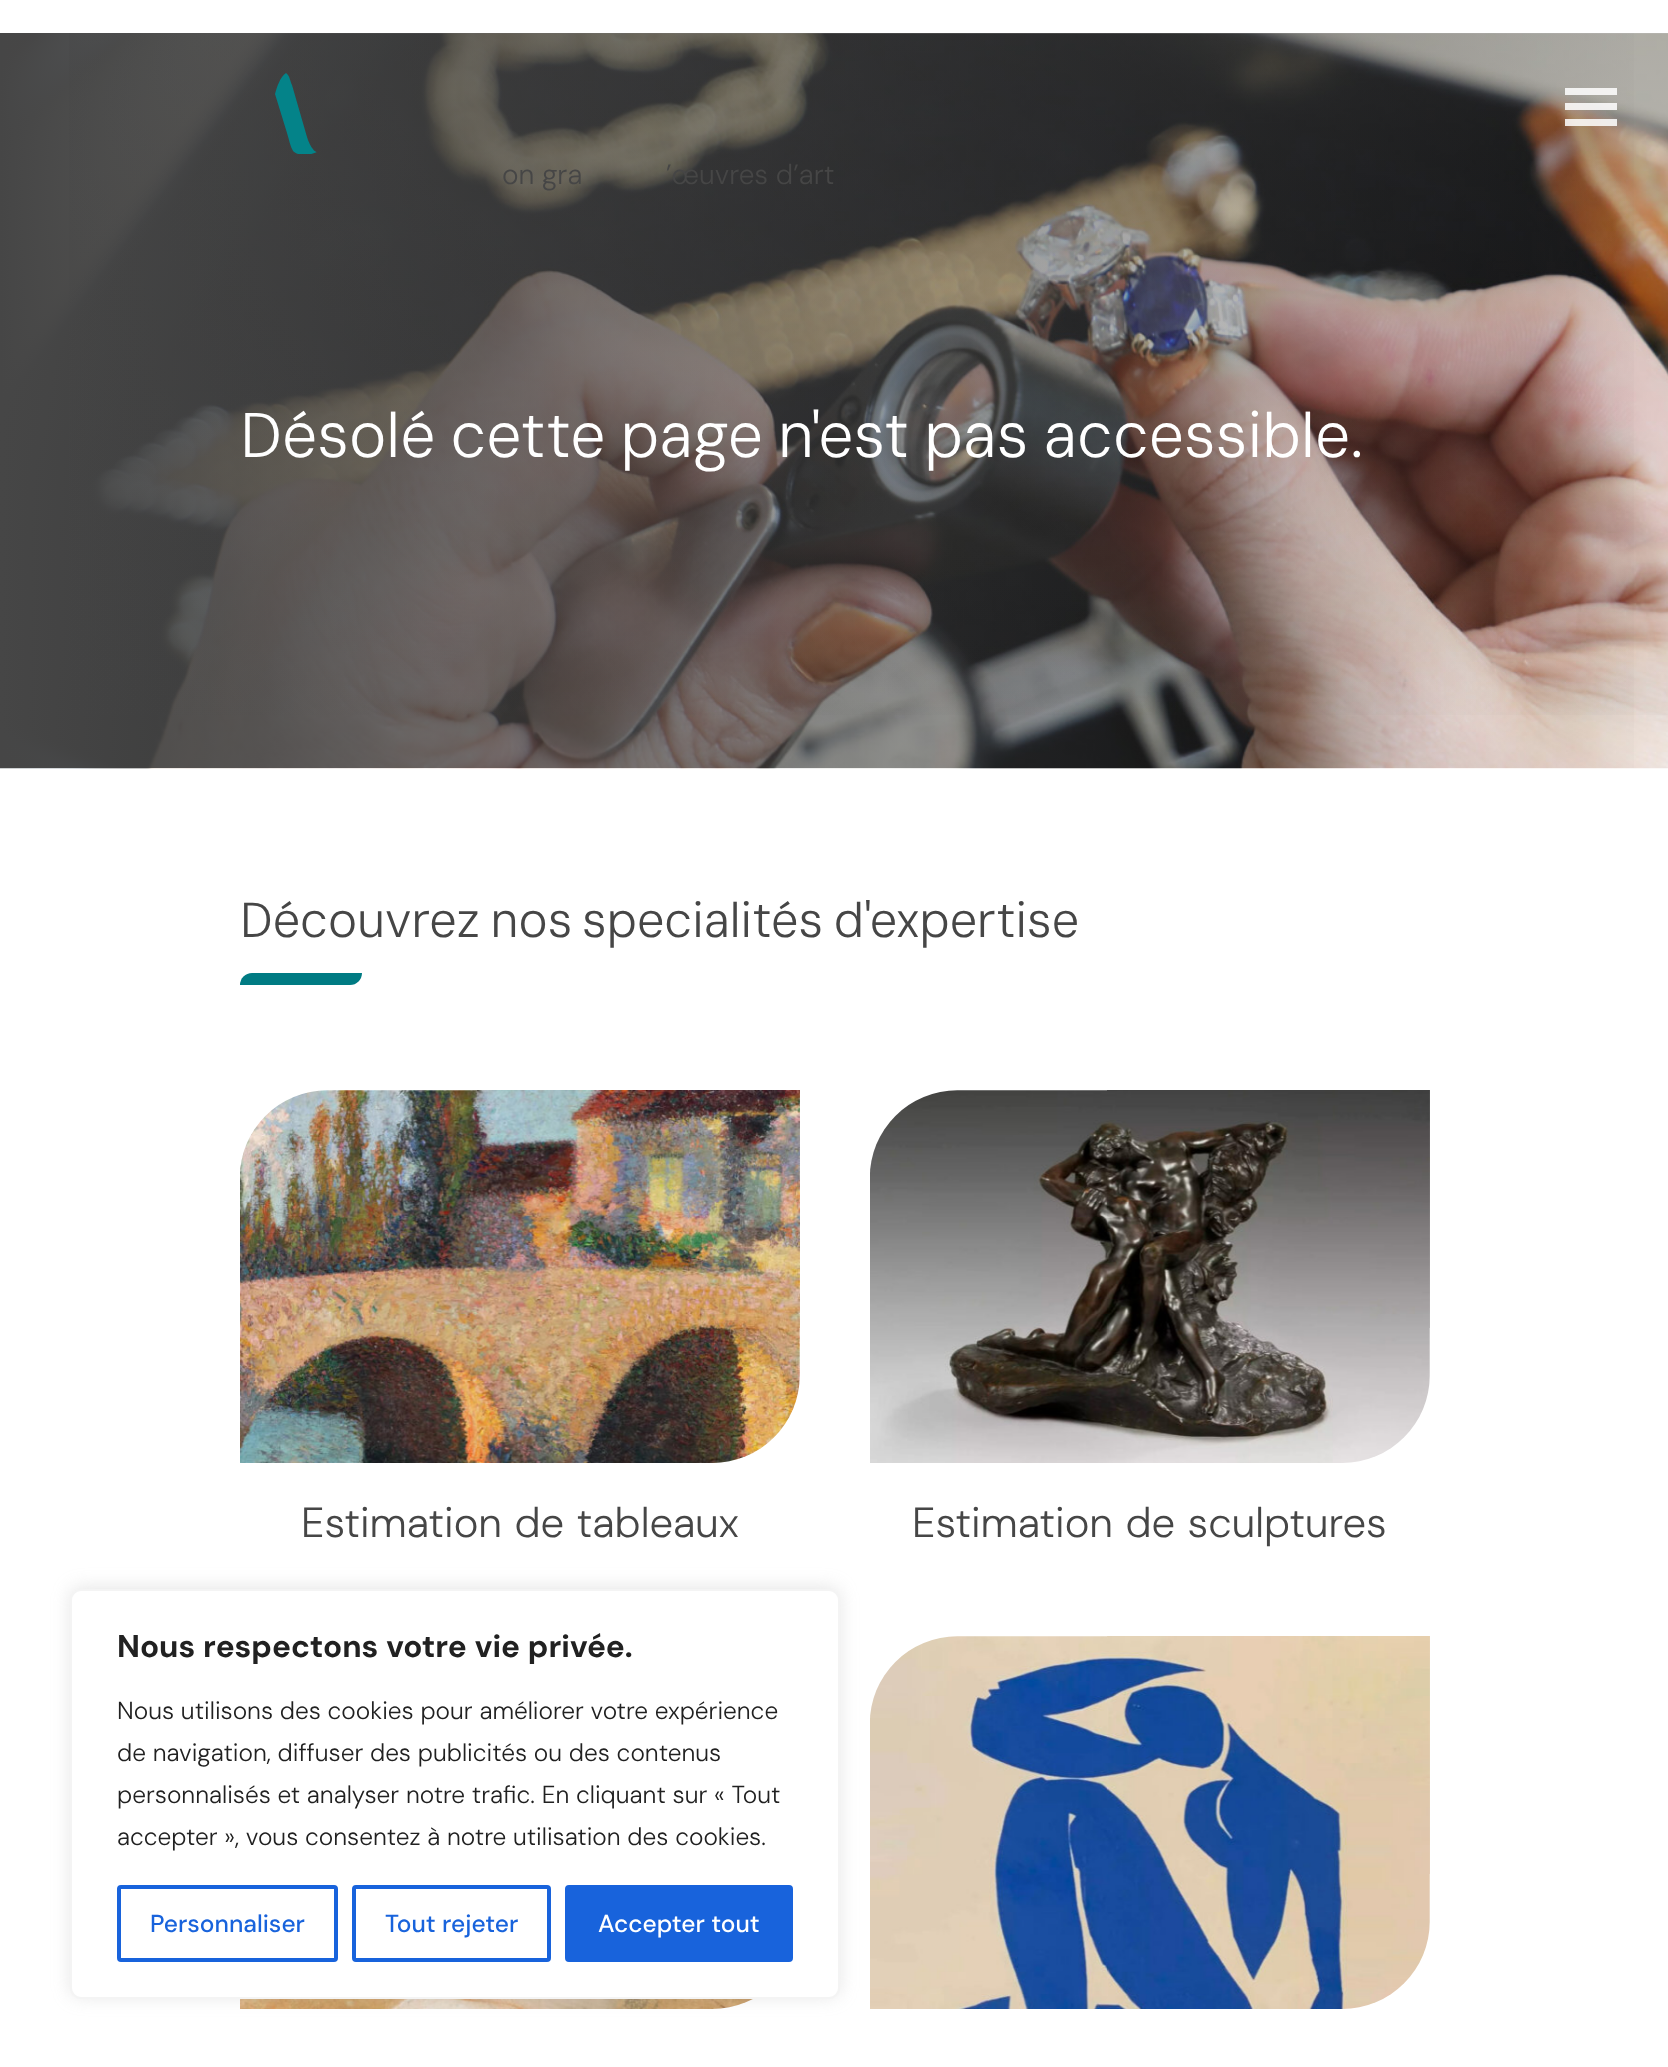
(async () => {
  const canvas = document.querySelector("canvas");
  canvas.width = 1668;
  canvas.height = 2067;
  const ctx = canvas.getContext("2d");
  ctx.miterLimit = 4;
  ctx.fontKerning = "normal";
  async function loadImage(src) {
    const img = new Image();
    img.src = src;
    await img.decode();
    return img;
  }
  let gradient, path;

  ctx.fillStyle = "#ffffff";
  ctx.fillRect(0, 0, 1668, 2067);
  ctx.drawImage(await loadImage("img/1.png"), 0, 33, 1668, 736);
  gradient = ctx.createLinearGradient(0, 401, 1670, 401);
  gradient.addColorStop(0, "#464646");
  gradient.addColorStop(1, "rgba(70, 70, 70, 0)");
  ctx.fillStyle = gradient;
  ctx.fillRect(0, 33, 1634, 735);
  gradient = ctx.createLinearGradient(835, 33, 835, 768);
  gradient.addColorStop(0, "rgba(70, 70, 70, 0.3)");
  gradient.addColorStop(1, "rgba(70, 70, 70, 0)");
  ctx.fillStyle = gradient;
  ctx.fillRect(69, 33, 1599, 682);
  ctx.save();
  ctx.beginPath();
  ctx.rect(240, 70, 437, 84);
  ctx.clip();
  ctx.fillStyle = "#048389";
  path = new Path2D("M307 137L292 85C290 81 290 76 286 73C280 77 277 87 275 94L287 133C289 139 290 146 293 151C299 157 311 155 317 152C317 152 312 152 307 137Z");
  ctx.fill(path);
  ctx.restore();
  for (const [x, y, w, h, color] of [
    [1565, 88, 52, 7, "rgba(255, 255, 255, 0.85)"],
    [1565, 103, 52, 7, "rgba(255, 255, 255, 0.85)"],
    [1565, 119, 52, 7, "rgba(255, 255, 255, 0.85)"],
  ]) {
    ctx.fillStyle = color;
    ctx.fillRect(x, y, w, h);
  }
  ctx.fillStyle = "#007b83";
  ctx.beginPath();
  ctx.roundRect(240, 973, 122, 12, [12, 0, 12, 0]);
  ctx.fill();
  ctx.drawImage(await loadImage("img/2.png"), 240, 1090, 560, 373);
  ctx.drawImage(await loadImage("img/3.png"), 870, 1090, 560, 373);
  ctx.drawImage(await loadImage("img/4.png"), 240, 1999, 513, 10);
  ctx.drawImage(await loadImage("img/5.png"), 870, 1636, 560, 373);
  ctx.fillStyle = "rgba(172, 171, 171, 0.3)";
  ctx.filter = "blur(9px)";
  ctx.beginPath();
  ctx.roundRect(70, 1587, 770, 410, 11);
  ctx.fill();
  ctx.filter = "none";
  ctx.fillStyle = "#ffffff";
  ctx.beginPath();
  ctx.roundRect(71, 1590, 768, 408, 10);
  ctx.fill();
  ctx.strokeStyle = "#f4f4f4";
  ctx.lineWidth = 2;
  ctx.stroke();
  ctx.beginPath();
  ctx.roundRect(119, 1887, 217, 73, 2);
  ctx.strokeStyle = "#1863dc";
  ctx.lineWidth = 4;
  ctx.stroke();
  ctx.beginPath();
  ctx.roundRect(354, 1887, 195, 73, 2);
  ctx.stroke();
  ctx.fillStyle = "#1863dc";
  ctx.beginPath();
  ctx.roundRect(567, 1887, 224, 73, 2);
  ctx.fill();
  ctx.stroke();
  ctx.font = "300 28px 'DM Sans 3'";
  ctx.fillStyle = "#464646";
  ctx.fillText("on gra", 502, 184);
  ctx.fillText("’œuvres d’art", 666, 184);
  ctx.wordSpacing = "-2.5px";
  ctx.font = "300 63px DM Sans";
  ctx.fillStyle = "#ffffff";
  ctx.fillText("Désolé cette page n'est pas accessible.", 240, 457);
  ctx.wordSpacing = "-3px";
  ctx.font = "300 49px DM Sans";
  ctx.fillStyle = "#464646";
  ctx.fillText("Découvrez nos", 240, 937);
  ctx.fillText("specialités d'expertise", 582, 937);
  ctx.wordSpacing = "1px";
  ctx.font = "300 42px 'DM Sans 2'";
  ctx.fillText("Estimation de tableaux", 301, 1537);
  ctx.fillText("Estimation de sculptures", 912, 1537);
  ctx.wordSpacing = "0.5px";
  ctx.font = "bold 31.5px DM Sans";
  ctx.fillStyle = "#212121";
  ctx.fillText("Nous respectons votre vie privée.", 117, 1657);
  ctx.wordSpacing = "0px";
  ctx.font = "300 24.5px 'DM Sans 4'";
  for (const [text, x, y] of [
    ["Nous utilisons des cookies pour améliorer votre expérience", 117, 1719],
    ["de navigation, diffuser des publicités ou des contenus", 117, 1761],
    ["personnalisés et analyser notre trafic. En cliquant sur « Tout", 117, 1803],
    ["accepter », vous consentez à notre utilisation des cookies.", 117, 1845],
  ]) {
    ctx.fillText(text, x, y);
  }
  ctx.font = "500 24.5px DM Sans";
  ctx.fillStyle = "#1863dc";
  ctx.fillText("Personnaliser", 150, 1932);
  ctx.fillText("Tout rejeter", 385, 1932);
  ctx.fillStyle = "#ffffff";
  ctx.fillText("Accepter tout", 598, 1932);
})();
